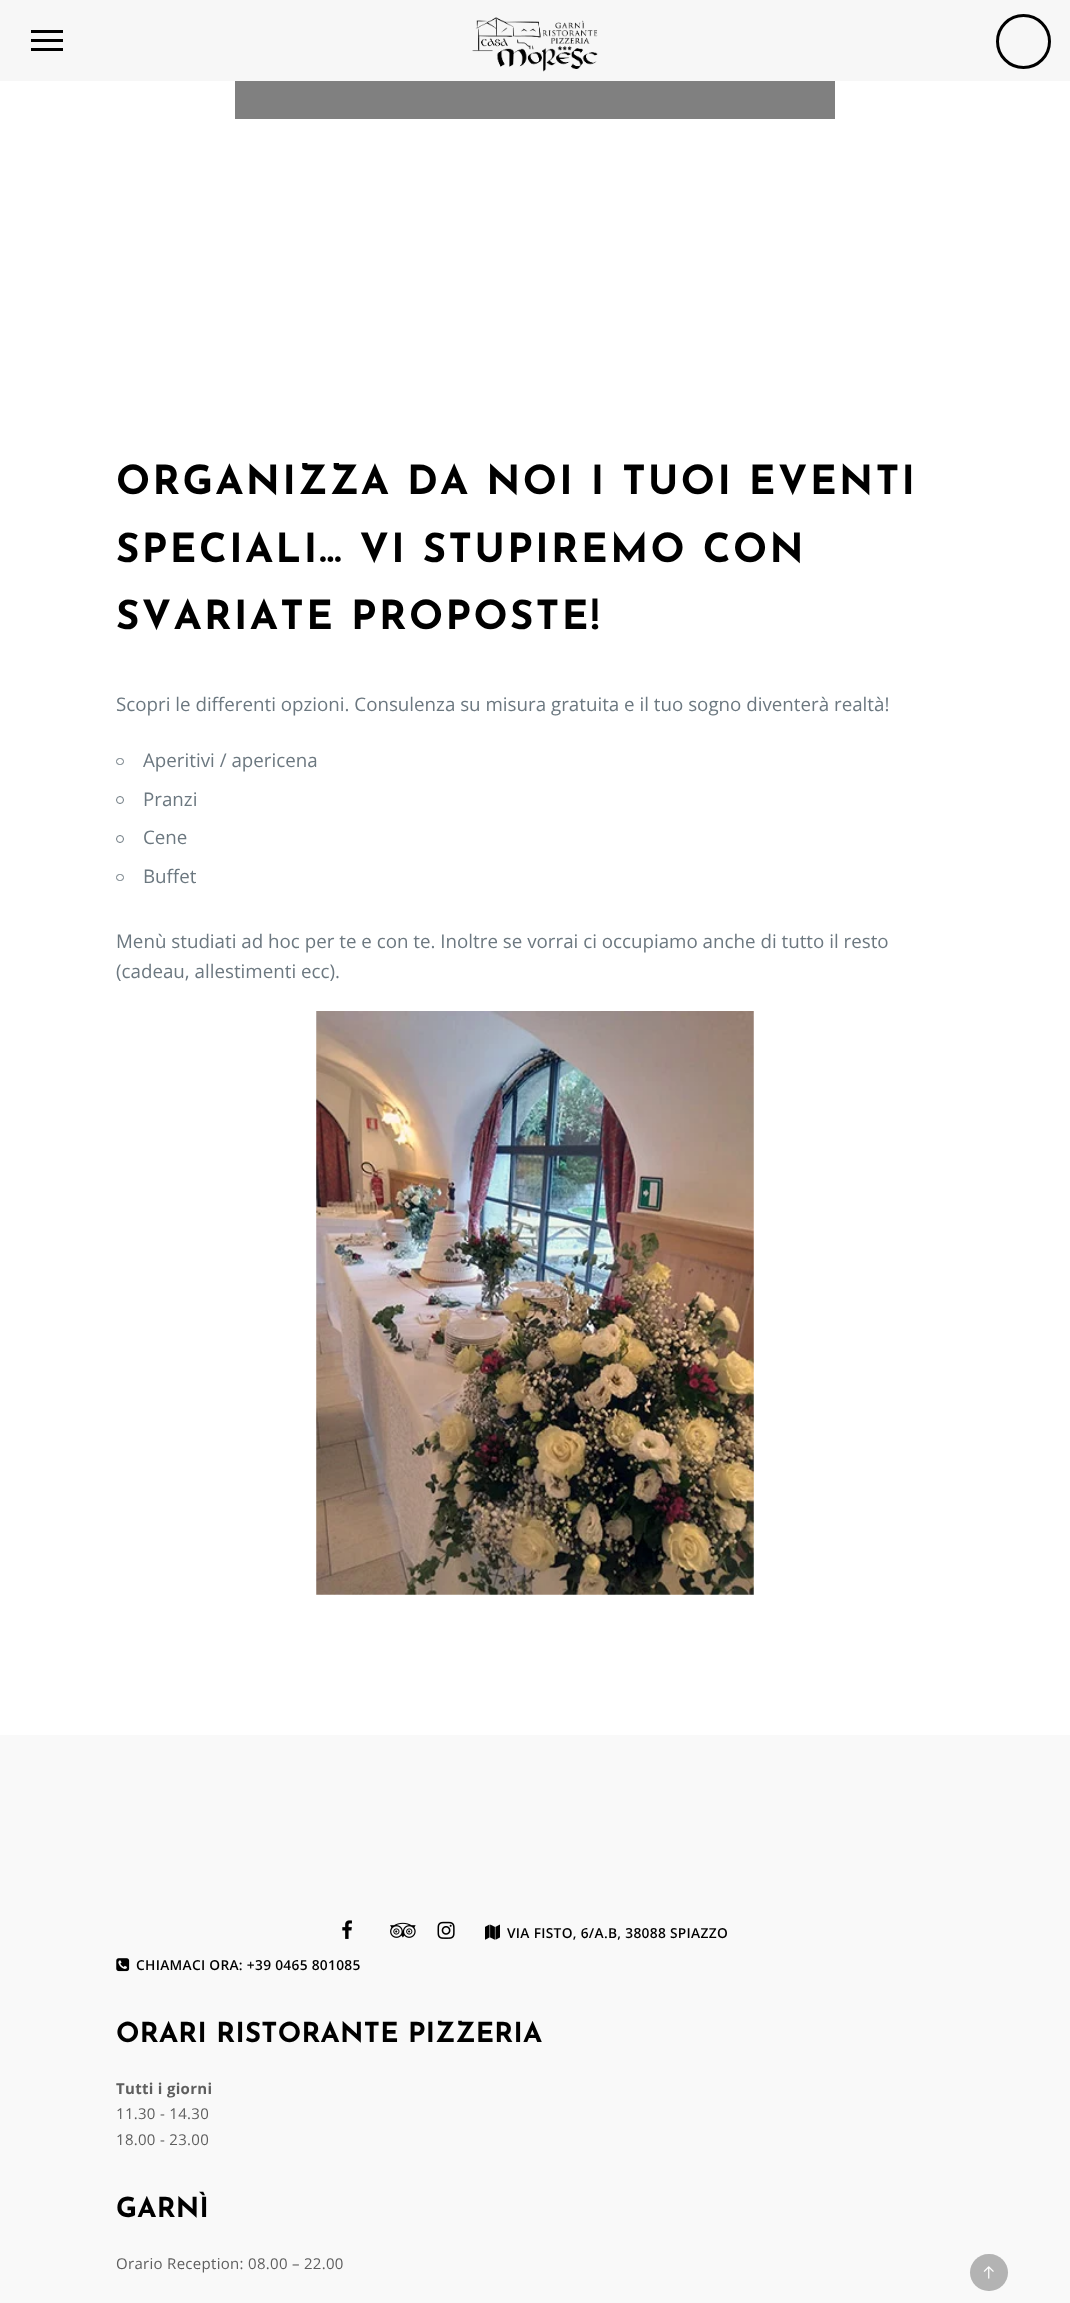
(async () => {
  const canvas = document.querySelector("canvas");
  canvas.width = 1070;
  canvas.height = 2303;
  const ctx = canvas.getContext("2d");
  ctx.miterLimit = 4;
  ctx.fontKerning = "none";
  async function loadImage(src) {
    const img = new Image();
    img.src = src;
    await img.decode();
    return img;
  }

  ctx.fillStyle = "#ffffff";
  ctx.fillRect(0, 0, 1070, 2303);
  ctx.fillStyle = "#f7f7f7";
  ctx.fillRect(0, 0, 1070, 81);
  ctx.drawImage(await loadImage("img/1.png"), 472, 17, 126, 55);
  for (const [x, y, w, h, color] of [
    [31, 39, 32, 3, "#000000"],
    [31, 30, 32, 3, "#000000"],
    [31, 48, 32, 3, "#000000"],
  ]) {
    ctx.fillStyle = color;
    ctx.fillRect(x, y, w, h);
  }
  ctx.beginPath();
  ctx.arc(1023.5, 41.5, 26, 0, Math.PI * 2);
  ctx.strokeStyle = "#000000";
  ctx.lineWidth = 3;
  ctx.stroke();
  ctx.fillStyle = "#808080";
  ctx.fillRect(235, 81, 600, 38);
  ctx.beginPath();
  ctx.roundRect(116.5, 758.5, 7, 6, 3);
  ctx.strokeStyle = "#6c7880";
  ctx.lineWidth = 1;
  ctx.stroke();
  ctx.beginPath();
  ctx.arc(120, 800, 3.5, 0, Math.PI * 2);
  ctx.stroke();
  ctx.beginPath();
  ctx.arc(120, 839, 3.5, 0, Math.PI * 2);
  ctx.stroke();
  ctx.beginPath();
  ctx.roundRect(116.5, 874.5, 7, 6, 3);
  ctx.stroke();
  ctx.drawImage(await loadImage("img/2.png"), 316, 1011, 438, 584);
  ctx.fillStyle = "#f9f9f9";
  ctx.fillRect(0, 1735, 1070, 568);
  ctx.drawImage(await loadImage("img/3.png"), 342, 1920, 10, 19);
  ctx.drawImage(await loadImage("img/4.png"), 390, 1922, 26, 16);
  ctx.drawImage(await loadImage("img/5.png"), 437, 1921, 18, 18);
  ctx.drawImage(await loadImage("img/6.png"), 485, 1924, 15, 16);
  ctx.drawImage(await loadImage("img/7.png"), 116, 1958, 14, 14);
  ctx.fillStyle = "#b3b3b3";
  ctx.beginPath();
  ctx.roundRect(970, 2254, 38, 37, 18.5);
  ctx.fill();
  ctx.drawImage(await loadImage("img/8.png"), 983, 2266, 11, 13);
  ctx.letterSpacing = "2.5px";
  ctx.font = "bold 40px Josefin Sans";
  ctx.fillStyle = "#000000";
  for (const [text, x, y] of [
    ["ORGANIZZA DA NOI I TUOI EVENTI", 116, 494],
    ["SPECIALI… VI STUPIREMO CON", 116, 562],
    ["SVARIATE", 116, 629],
    ["PROPOSTE!", 351, 629],
  ]) {
    ctx.fillText(text, x, y);
  }
  ctx.letterSpacing = "0px";
  ctx.font = "18.75px Open Sans";
  ctx.fillStyle = "#6c7880";
  for (const [text, x, y] of [
    ["Scopri le differenti opzioni. Consulenza su misura gratuita e il tuo sogno diventerà realtà!", 116, 711],
    ["Aperitivi / apericena", 143, 767],
    ["Pranzi", 143, 806],
    ["Cene", 143, 844],
    ["Buffet", 143, 883],
    ["Menù studiati ad hoc per te e con te. Inoltre se vorrai ci occupiamo anche di tutto il resto", 116, 948],
    ["(cadeau, allestimenti ecc).", 116, 978],
  ]) {
    ctx.fillText(text, x, y);
  }
  ctx.letterSpacing = "0.3px";
  ctx.font = "600 13.75px Open Sans";
  ctx.fillStyle = "#000000";
  ctx.fillText("VIA FISTO, 6/A.B, 38088 SPIAZZO", 507, 1938);
  ctx.fillText("CHIAMACI ORA: +39 0465 801085", 136, 1970);
  ctx.font = "bold 27.5px Josefin Sans";
  ctx.fillText("ORARI RISTORANTE PIZZERIA", 116, 2042);
  ctx.font = "bold 15px Open Sans";
  ctx.fillStyle = "#5e5e5e";
  ctx.fillText("Tutti i giorni", 116, 2094);
  ctx.font = "15px Open Sans";
  ctx.fillText("11.30 - 14.30", 116, 2119);
  ctx.fillText("18.00 - 23.00", 116, 2145);
  ctx.font = "bold 27.5px Josefin Sans";
  ctx.fillStyle = "#000000";
  ctx.fillText("GARNÌ", 116, 2217);
  ctx.font = "15px Open Sans";
  ctx.fillStyle = "#5e5e5e";
  ctx.fillText("Orario Reception: 08.00 – 22.00", 116, 2269);
})();
